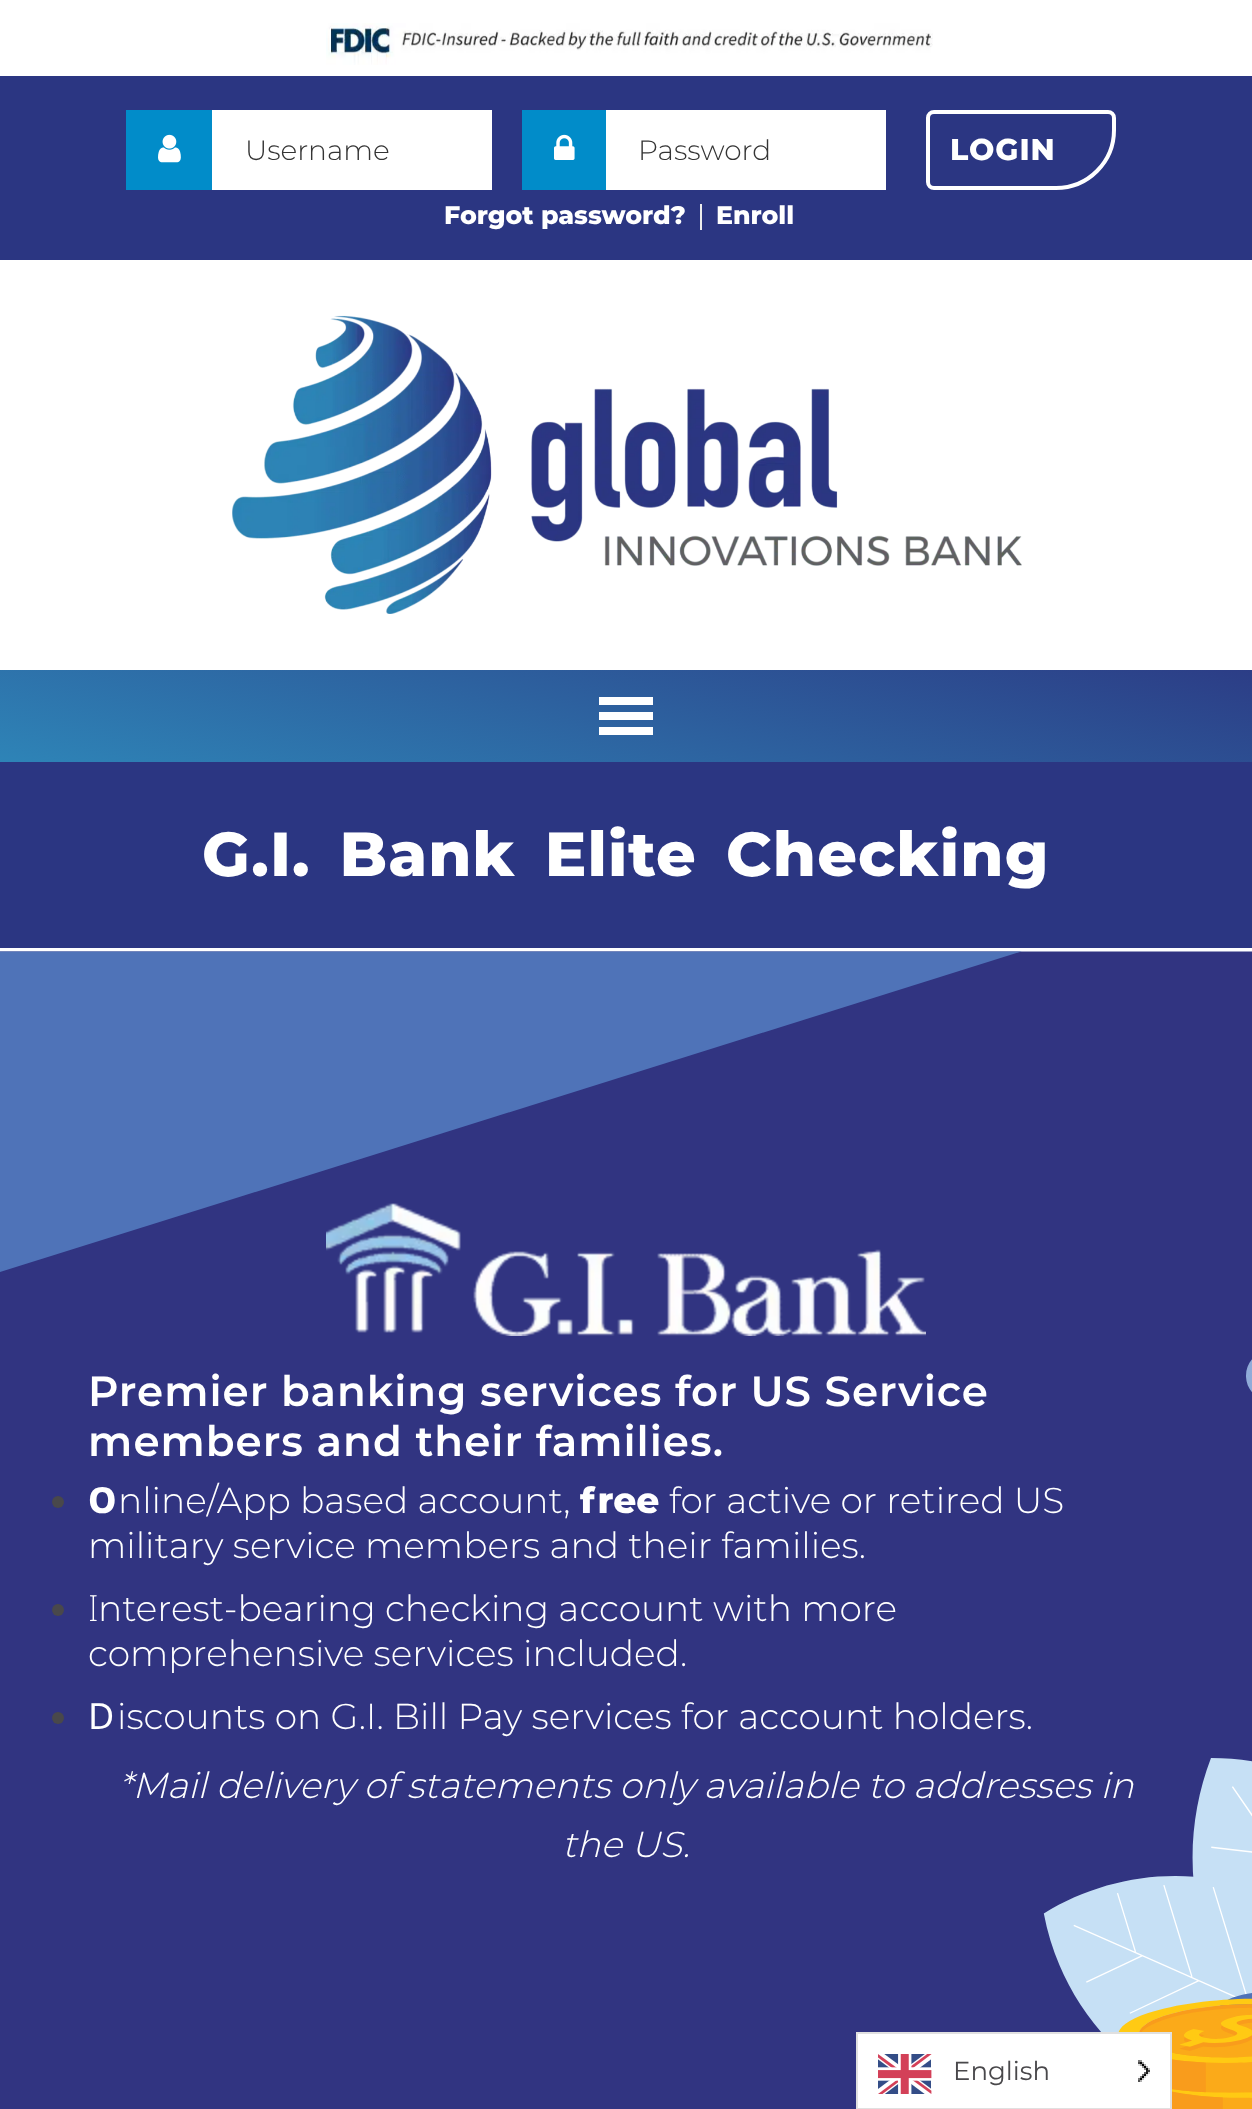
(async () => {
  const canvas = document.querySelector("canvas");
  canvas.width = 1252;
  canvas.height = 2109;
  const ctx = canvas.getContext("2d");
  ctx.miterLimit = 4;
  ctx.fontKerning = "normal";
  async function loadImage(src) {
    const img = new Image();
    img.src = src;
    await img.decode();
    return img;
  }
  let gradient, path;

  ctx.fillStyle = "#ffffff";
  ctx.fillRect(0, 0, 1252, 2109);
  ctx.drawImage(await loadImage("img/1.png"), 326, 23, 607, 42);
  ctx.fillStyle = "#2b3682";
  ctx.fillRect(0, 76, 1252, 184);
  ctx.fillStyle = "#018cc9";
  ctx.fillRect(126, 110, 86, 80);
  ctx.drawImage(await loadImage("img/2.png"), 158, 134, 23, 29);
  ctx.fillStyle = "#ffffff";
  ctx.fillRect(212, 110, 280, 80);
  ctx.fillStyle = "#018cc9";
  ctx.fillRect(522, 110, 84, 80);
  ctx.drawImage(await loadImage("img/3.png"), 554, 134, 21, 26);
  ctx.fillStyle = "#ffffff";
  ctx.fillRect(606, 110, 280, 80);
  ctx.beginPath();
  ctx.roundRect(928, 112, 186, 76, [6, 6, 58, 6]);
  ctx.strokeStyle = "#ffffff";
  ctx.lineWidth = 4;
  ctx.stroke();
  ctx.fillStyle = "#ececec";
  ctx.fillRect(700, 204, 2, 26);
  ctx.drawImage(await loadImage("img/4.png"), 232, 315, 790, 299);
  gradient = ctx.createLinearGradient(673, 526, 579, 906);
  gradient.addColorStop(0, "#2c3d86");
  gradient.addColorStop(1, "#2e84b7");
  ctx.fillStyle = gradient;
  ctx.fillRect(0, 670, 1252, 92);
  ctx.fillStyle = "#ffffff";
  path = new Path2D("M599 735H653V727H599ZM599 697V705H653V697ZM599 720H653V712H599Z");
  ctx.fill(path);
  ctx.fillStyle = "#2b3682";
  ctx.fillRect(0, 762, 1252, 186);
  ctx.drawImage(await loadImage("img/5.png"), 0, 951, 1252, 1158);
  ctx.drawImage(await loadImage("img/6.png"), 326, 1203, 600, 133);
  ctx.fillStyle = "#49484b";
  ctx.beginPath();
  ctx.arc(58, 1502, 6, 0, Math.PI * 2);
  ctx.fill();
  ctx.beginPath();
  ctx.arc(58, 1610, 6, 0, Math.PI * 2);
  ctx.fill();
  ctx.beginPath();
  ctx.arc(58, 1718, 6, 0, Math.PI * 2);
  ctx.fill();
  ctx.fillStyle = "#ffffff";
  ctx.beginPath();
  ctx.rect(857, 2033, 314, 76);
  ctx.fill();
  ctx.strokeStyle = "#e0e0e0";
  ctx.lineWidth = 2;
  ctx.stroke();
  ctx.drawImage(await loadImage("img/7.png"), 878, 2054, 54, 40);
  ctx.drawImage(await loadImage("img/8.png"), 1138, 2060, 12, 22);
  ctx.font = "300 28px Montserrat";
  ctx.fillStyle = "#343434";
  ctx.fillText("Username", 245, 160);
  ctx.fillText("Password", 638, 160);
  ctx.letterSpacing = "1px";
  ctx.font = "800 30px Montserrat";
  ctx.fillStyle = "#ffffff";
  ctx.fillText("LOGIN", 950, 160);
  ctx.letterSpacing = "0px";
  ctx.font = "800 25.25px Montserrat";
  ctx.fillText("Forgot password?", 444, 224);
  ctx.fillText("Enroll", 716, 224);
  ctx.letterSpacing = "1px";
  ctx.wordSpacing = "10px";
  ctx.font = "800 62px Montserrat";
  ctx.fillText("G.I. Bank Elite Checking", 202, 876);
  ctx.wordSpacing = "0px";
  ctx.font = "600 42px Montserrat";
  ctx.fillText("Premier banking services for US Service", 88, 1406);
  ctx.fillText("members and their families.", 88, 1456);
  ctx.letterSpacing = "0px";
  ctx.font = "300 36px Montserrat";
  ctx.fillText("nline/App based account,", 118, 1513);
  ctx.font = "800 36px Montserrat";
  ctx.fillText("free", 580, 1513);
  ctx.font = "300 36px Montserrat";
  ctx.fillText("for active or retired US", 669, 1513);
  ctx.fillText("military service members and their families.", 88, 1558);
  ctx.font = "800 36px Noto Sans";
  ctx.fillText("O", 88, 1513);
  ctx.font = "300 36px Montserrat";
  ctx.fillText("nterest-bearing checking account with more", 98, 1621);
  ctx.fillText("comprehensive services included.", 88, 1666);
  ctx.font = "200 36px Noto Sans";
  ctx.fillText("I", 88, 1621);
  ctx.font = "36px Noto Sans";
  ctx.fillText("D", 88, 1729);
  ctx.font = "300 36px Montserrat";
  ctx.fillText("iscounts on G.I. Bill Pay services for account holders.", 117, 1729);
  ctx.font = "italic 300 36px Montserrat";
  ctx.fillText("*Mail delivery of statements only available to addresses in", 119, 1798);
  ctx.fillText("the US.", 562, 1857);
  ctx.font = "26px Montserrat";
  ctx.fillStyle = "#49484b";
  ctx.fillText("English", 953, 2080);
})();
